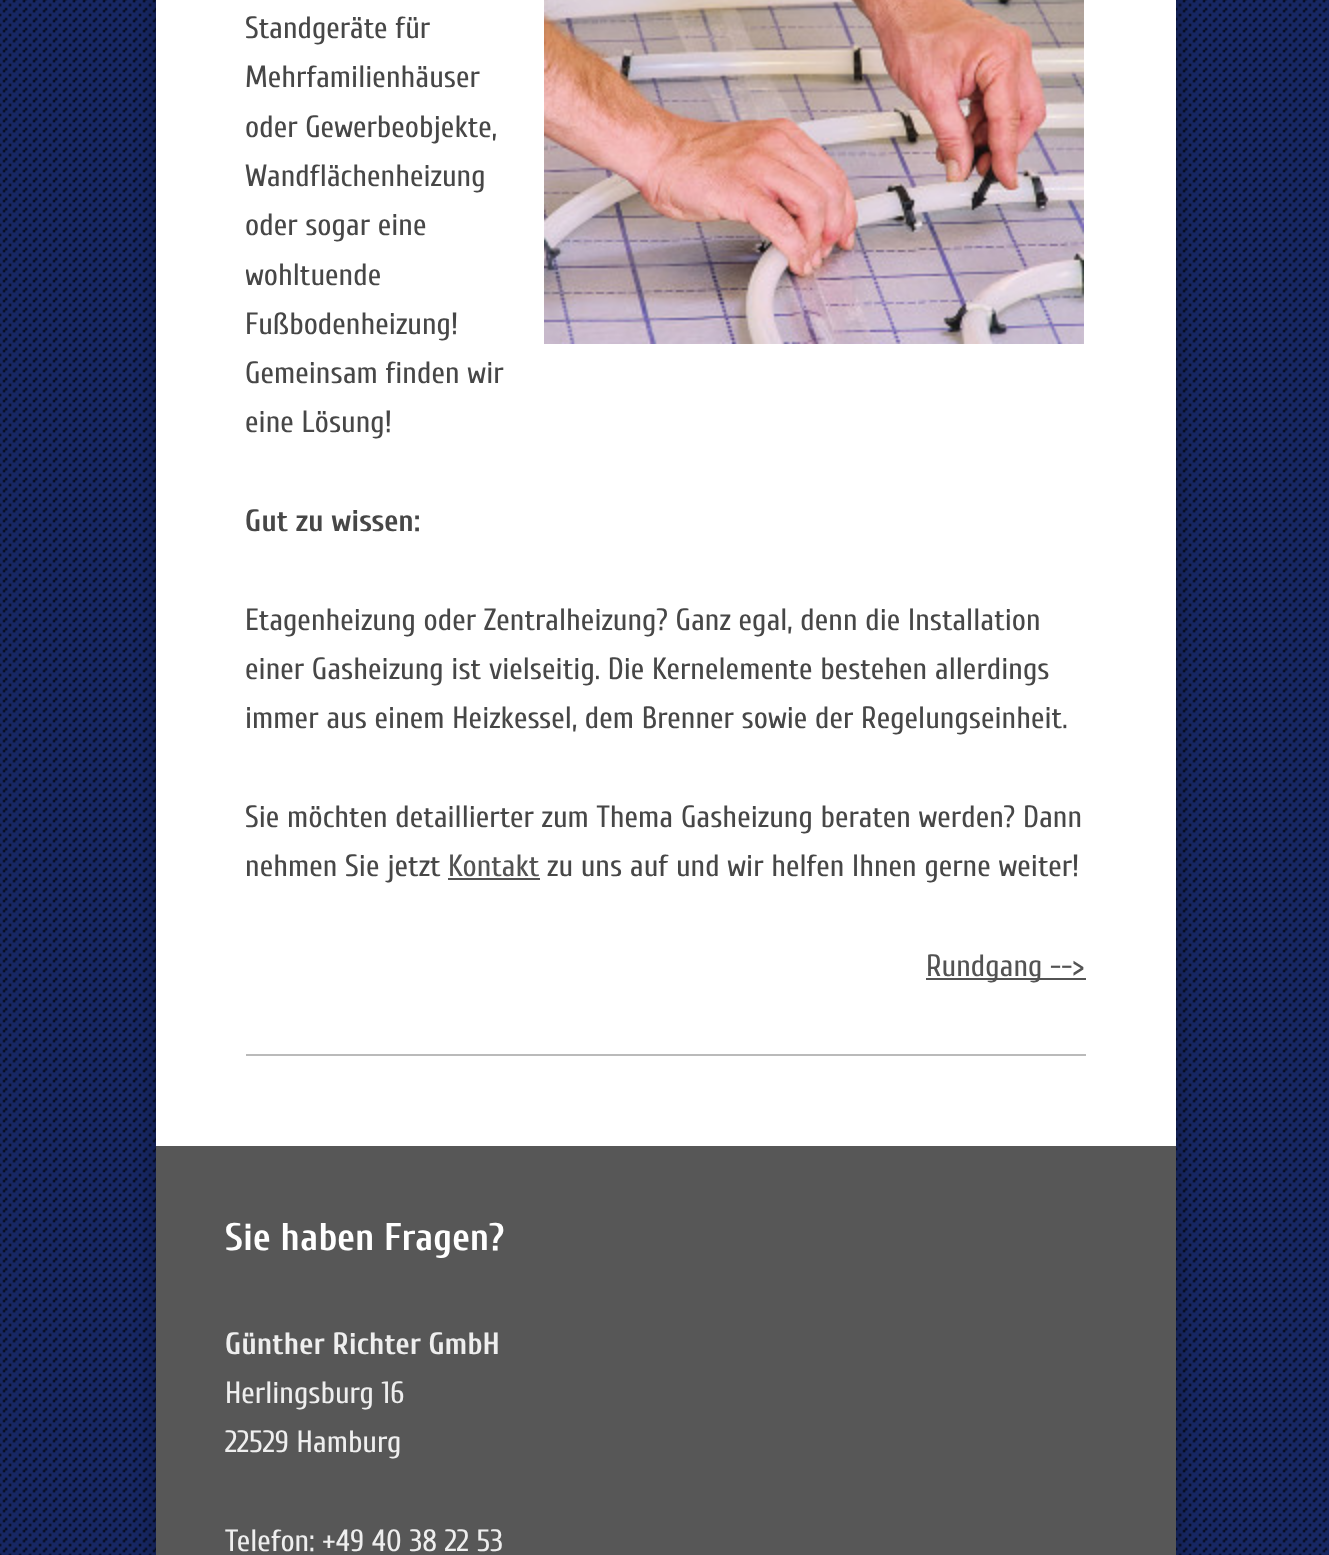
(async () => {
  const canvas = document.querySelector("canvas");
  canvas.width = 1329;
  canvas.height = 1555;
  const ctx = canvas.getContext("2d");
  ctx.miterLimit = 4;
  ctx.fontKerning = "normal";
  async function loadImage(src) {
    const img = new Image();
    img.src = src;
    await img.decode();
    return img;
  }

  ctx.fillStyle = "#172763";
  ctx.fillRect(0, 0, 1329, 1555);
  ctx.drawImage(await loadImage("img/1.png"), 0, 0, 1329, 1555);
  ctx.fillStyle = "rgba(0, 0, 0, 0.3)";
  ctx.filter = "blur(10px)";
  ctx.beginPath();
  ctx.rect(156, -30, 1020, 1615);
  ctx.fill();
  ctx.filter = "none";
  ctx.fillStyle = "#ffffff";
  ctx.fillRect(156, 0, 1020, 1146);
  ctx.drawImage(await loadImage("img/2.png"), 544, 0, 540, 344);
  for (const [x, y, w, h, color] of [
    [448, 878, 92, 2, "#535353"],
    [926, 978, 160, 2, "#535353"],
    [246, 1054, 840, 2, "#bababa"],
    [156, 1146, 1020, 409, "#575757"],
  ]) {
    ctx.fillStyle = color;
    ctx.fillRect(x, y, w, h);
  }
  ctx.font = "30.8px Cuprum";
  ctx.fillStyle = "#474747";
  for (const [text, x, y] of [
    ["Standgeräte für", 245, 38],
    ["Mehrfamilienhäuser", 245, 87],
    ["oder Gewerbeobjekte,", 245, 137],
    ["Wandflächenheizung", 245, 186],
    ["oder sogar eine", 245, 235],
  ]) {
    ctx.fillText(text, x, y);
  }
  ctx.save();
  ctx.beginPath();
  ctx.rect(246, 0, 840, 892);
  ctx.clip();
  ctx.fillText("wohltuende", 245, 285);
  ctx.restore();
  for (const [text, x, y] of [
    ["Fußbodenheizung!", 245, 334],
    ["Gemeinsam finden wir", 245, 383],
    ["eine Lösung!", 245, 432],
  ]) {
    ctx.fillText(text, x, y);
  }
  ctx.font = "bold 30.8px Cuprum";
  ctx.fillText("Gut zu wissen:", 245, 531);
  ctx.font = "30.8px Cuprum";
  for (const [text, x, y] of [
    ["Etagenheizung oder Zentralheizung? Ganz egal, denn die Installation", 245, 630],
    ["einer Gasheizung ist vielseitig. Die Kernelemente bestehen allerdings", 245, 679],
    ["immer aus einem Heizkessel, dem Brenner sowie der Regelungseinheit.", 245, 728],
    ["Sie möchten detaillierter zum Thema Gasheizung beraten werden? Dann", 245, 827],
    ["nehmen Sie jetzt", 245, 876],
  ]) {
    ctx.fillText(text, x, y);
  }
  ctx.fillStyle = "#535353";
  ctx.fillText("Kontakt", 448, 876);
  ctx.fillStyle = "#474747";
  ctx.fillText("zu uns auf und wir helfen Ihnen gerne weiter!", 547, 876);
  ctx.fillStyle = "#535353";
  ctx.fillText("Rundgang -->", 926, 976);
  ctx.font = "bold 38.5px Cuprum";
  ctx.fillStyle = "#ffffff";
  ctx.fillText("Sie haben Fragen?", 225, 1250);
  ctx.font = "bold 30.8px Cuprum";
  ctx.fillStyle = "#eeeeee";
  ctx.fillText("Günther Richter GmbH", 225, 1354);
  ctx.font = "30.8px Cuprum";
  for (const [text, x, y] of [
    ["Herlingsburg 16", 225, 1403],
    ["22529 Hamburg", 225, 1452],
    ["Telefon: +49 40 38 22 53", 225, 1551],
  ]) {
    ctx.fillText(text, x, y);
  }
})();
